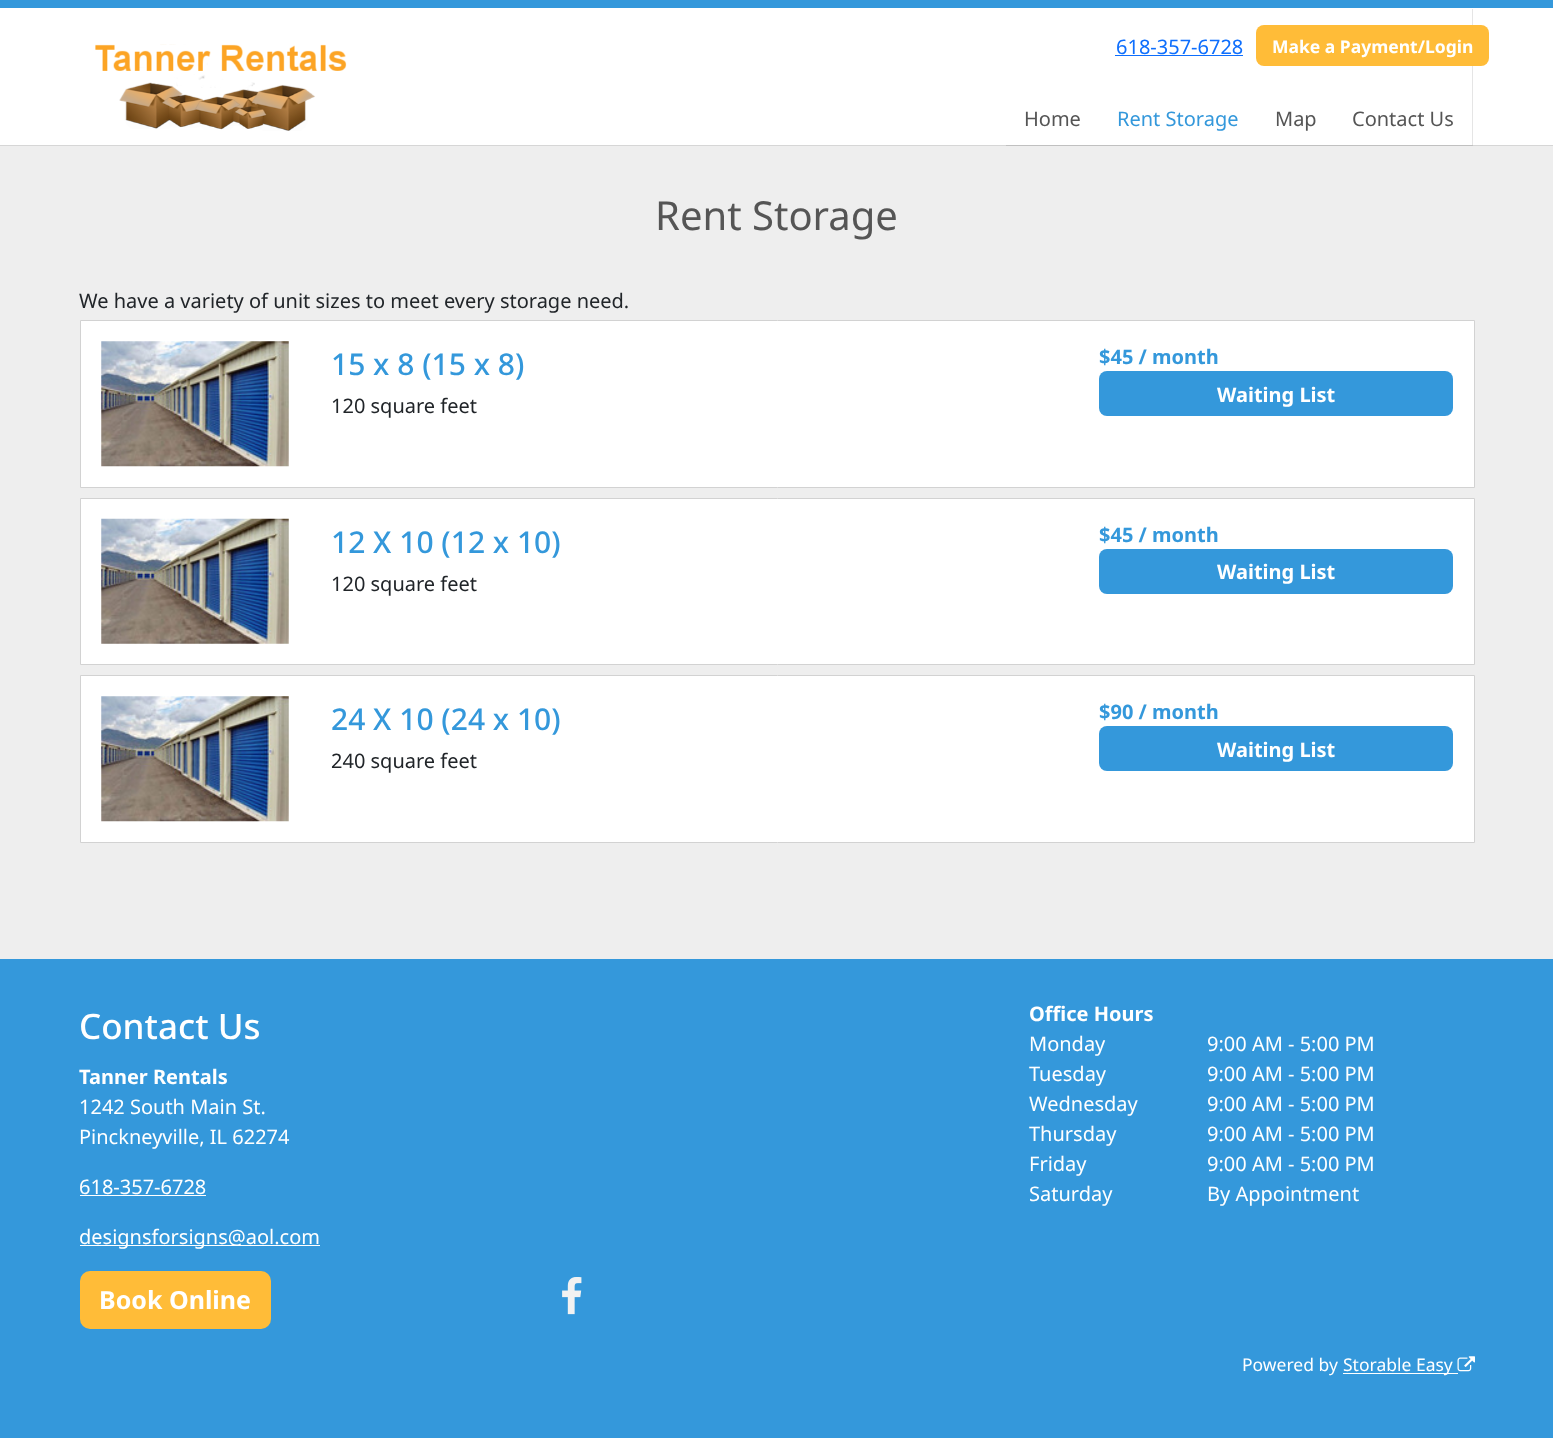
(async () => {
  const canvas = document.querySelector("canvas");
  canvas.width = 1553;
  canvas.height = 1438;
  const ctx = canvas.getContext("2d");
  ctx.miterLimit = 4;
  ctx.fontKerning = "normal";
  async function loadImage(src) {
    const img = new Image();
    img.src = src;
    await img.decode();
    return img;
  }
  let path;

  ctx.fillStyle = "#eeeeee";
  ctx.fillRect(0, 0, 1553, 1438);
  ctx.fillStyle = "#d6d6d6";
  path = new Path2D("M0 145V146H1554V1V145Z");
  ctx.fill(path);
  ctx.fillStyle = "#ffffff";
  ctx.fillRect(0, 8, 1553, 137);
  ctx.fillStyle = "#3498db";
  ctx.fillRect(0, 0, 1553, 8);
  ctx.drawImage(await loadImage("img/1.png"), 95, 44, 252, 87);
  ctx.fillStyle = "rgba(0, 0, 0, 0.1)";
  path = new Path2D("M1006 9V146H1473V9H1472V145H1006Z");
  ctx.fill(path);
  ctx.fillStyle = "#0d6efd";
  ctx.fillRect(1115, 55, 128, 1);
  ctx.fillStyle = "#ffbc38";
  ctx.beginPath();
  ctx.roundRect(1256, 25, 233, 41, 8);
  ctx.fill();
  ctx.fillStyle = "#ffffff";
  ctx.beginPath();
  ctx.rect(80.5, 320.5, 1394, 167);
  ctx.fill();
  ctx.strokeStyle = "#d2d2d2";
  ctx.stroke();
  ctx.drawImage(await loadImage("img/2.png"), 101, 341, 188, 126);
  ctx.fillStyle = "#3498db";
  ctx.beginPath();
  ctx.roundRect(1099, 371, 354, 45, 8);
  ctx.fill();
  ctx.fillStyle = "#ffffff";
  ctx.beginPath();
  ctx.rect(80.5, 498.5, 1394, 166);
  ctx.fill();
  ctx.stroke();
  ctx.drawImage(await loadImage("img/3.png"), 101, 518, 188, 126);
  ctx.fillStyle = "#3498db";
  ctx.beginPath();
  ctx.roundRect(1099, 549, 354, 45, 8);
  ctx.fill();
  ctx.fillStyle = "#ffffff";
  ctx.beginPath();
  ctx.rect(80.5, 675.5, 1394, 167);
  ctx.fill();
  ctx.stroke();
  ctx.drawImage(await loadImage("img/2.png"), 101, 696, 188, 126);
  ctx.fillStyle = "#3498db";
  ctx.beginPath();
  ctx.roundRect(1099, 726, 354, 45, 8);
  ctx.fill();
  for (const [x, y, w, h, color] of [
    [0, 959, 1553, 479, "#3498db"],
    [80, 1195, 126, 1, "#ffffff"],
    [80, 1245, 240, 1, "#ffffff"],
  ]) {
    ctx.fillStyle = color;
    ctx.fillRect(x, y, w, h);
  }
  ctx.fillStyle = "#ffbc38";
  ctx.beginPath();
  ctx.roundRect(80, 1271, 191, 58, 10);
  ctx.fill();
  ctx.drawImage(await loadImage("img/4.png"), 562, 1277, 20, 38);
  ctx.fillStyle = "#ffffff";
  ctx.fillRect(1343, 1373, 115, 1);
  ctx.drawImage(await loadImage("img/5.png"), 1457, 1356, 18, 16);
  ctx.font = "20px Noto Sans";
  ctx.fillStyle = "#0d6efd";
  ctx.fillText("618-357-6728", 1116, 54);
  ctx.font = "bold 17.5px Noto Sans";
  ctx.fillStyle = "#ffffff";
  ctx.fillText("Make a Payment/Login", 1272, 53);
  ctx.font = "20px Noto Sans";
  ctx.fillStyle = "#555555";
  ctx.fillText("Home", 1024, 126);
  ctx.fillStyle = "#3498db";
  ctx.fillText("Rent Storage", 1117, 126);
  ctx.fillStyle = "#555555";
  ctx.fillText("Map", 1275, 126);
  ctx.fillText("Contact Us", 1352, 126);
  ctx.font = "40px Noto Sans";
  ctx.fillText("Rent Storage", 655, 230);
  ctx.font = "20px Noto Sans";
  ctx.fillStyle = "#212529";
  ctx.fillText("We have a variety of unit sizes to meet every storage need.", 79, 308);
  ctx.font = "500 30px Noto Sans";
  ctx.fillStyle = "#3498db";
  ctx.fillText("15 x 8 (15 x 8)", 331, 375);
  ctx.font = "20px Noto Sans";
  ctx.fillStyle = "#212529";
  ctx.fillText("120 square feet", 331, 413);
  ctx.font = "bold 20px Noto Sans";
  ctx.fillStyle = "#3498db";
  ctx.fillText("$45 / month", 1099, 364);
  ctx.fillStyle = "#ffffff";
  ctx.fillText("Waiting List", 1217, 402);
  ctx.font = "500 30px Noto Sans";
  ctx.fillStyle = "#3498db";
  ctx.fillText("12 X 10 (12 x 10)", 331, 553);
  ctx.font = "20px Noto Sans";
  ctx.fillStyle = "#212529";
  ctx.fillText("120 square feet", 331, 591);
  ctx.font = "bold 20px Noto Sans";
  ctx.fillStyle = "#3498db";
  ctx.fillText("$45 / month", 1099, 542);
  ctx.fillStyle = "#ffffff";
  ctx.fillText("Waiting List", 1217, 579);
  ctx.font = "500 30px Noto Sans";
  ctx.fillStyle = "#3498db";
  ctx.fillText("24 X 10 (24 x 10)", 331, 730);
  ctx.font = "20px Noto Sans";
  ctx.fillStyle = "#212529";
  ctx.fillText("240 square feet", 331, 768);
  ctx.font = "bold 20px Noto Sans";
  ctx.fillStyle = "#3498db";
  ctx.fillText("$90 / month", 1099, 719);
  ctx.fillStyle = "#ffffff";
  ctx.fillText("Waiting List", 1217, 757);
  ctx.font = "500 35px Noto Sans";
  ctx.fillText("Contact Us", 79, 1039);
  ctx.font = "bold 20px Noto Sans";
  ctx.fillText("Tanner Rentals", 79, 1084);
  ctx.font = "20px Noto Sans";
  for (const [text, x, y] of [
    ["1242 South Main St.", 79, 1114],
    ["Pinckneyville, IL 62274", 79, 1144],
    ["618-357-6728", 79, 1194],
    ["designsforsigns@aol.com", 79, 1244],
  ]) {
    ctx.fillText(text, x, y);
  }
  ctx.font = "bold 20px Noto Sans";
  ctx.fillText("Office Hours", 1029, 1021);
  ctx.font = "20px Noto Sans";
  for (const [text, x, y] of [
    ["Monday", 1029, 1051],
    ["9:00 AM - 5:00 PM", 1207, 1051],
    ["Tuesday", 1029, 1081],
    ["9:00 AM - 5:00 PM", 1207, 1081],
    ["Wednesday", 1029, 1111],
    ["9:00 AM - 5:00 PM", 1207, 1111],
    ["Thursday", 1029, 1141],
    ["9:00 AM - 5:00 PM", 1207, 1141],
    ["Friday", 1029, 1171],
    ["9:00 AM - 5:00 PM", 1207, 1171],
    ["Saturday", 1029, 1201],
    ["By Appointment", 1207, 1201],
  ]) {
    ctx.fillText(text, x, y);
  }
  ctx.font = "bold 25px Noto Sans";
  ctx.fillText("Book Online", 99, 1309);
  ctx.font = "17.5px Noto Sans";
  ctx.fillText("Powered by", 1242, 1371);
  ctx.fillText("Storable Easy", 1343, 1371);
})();
